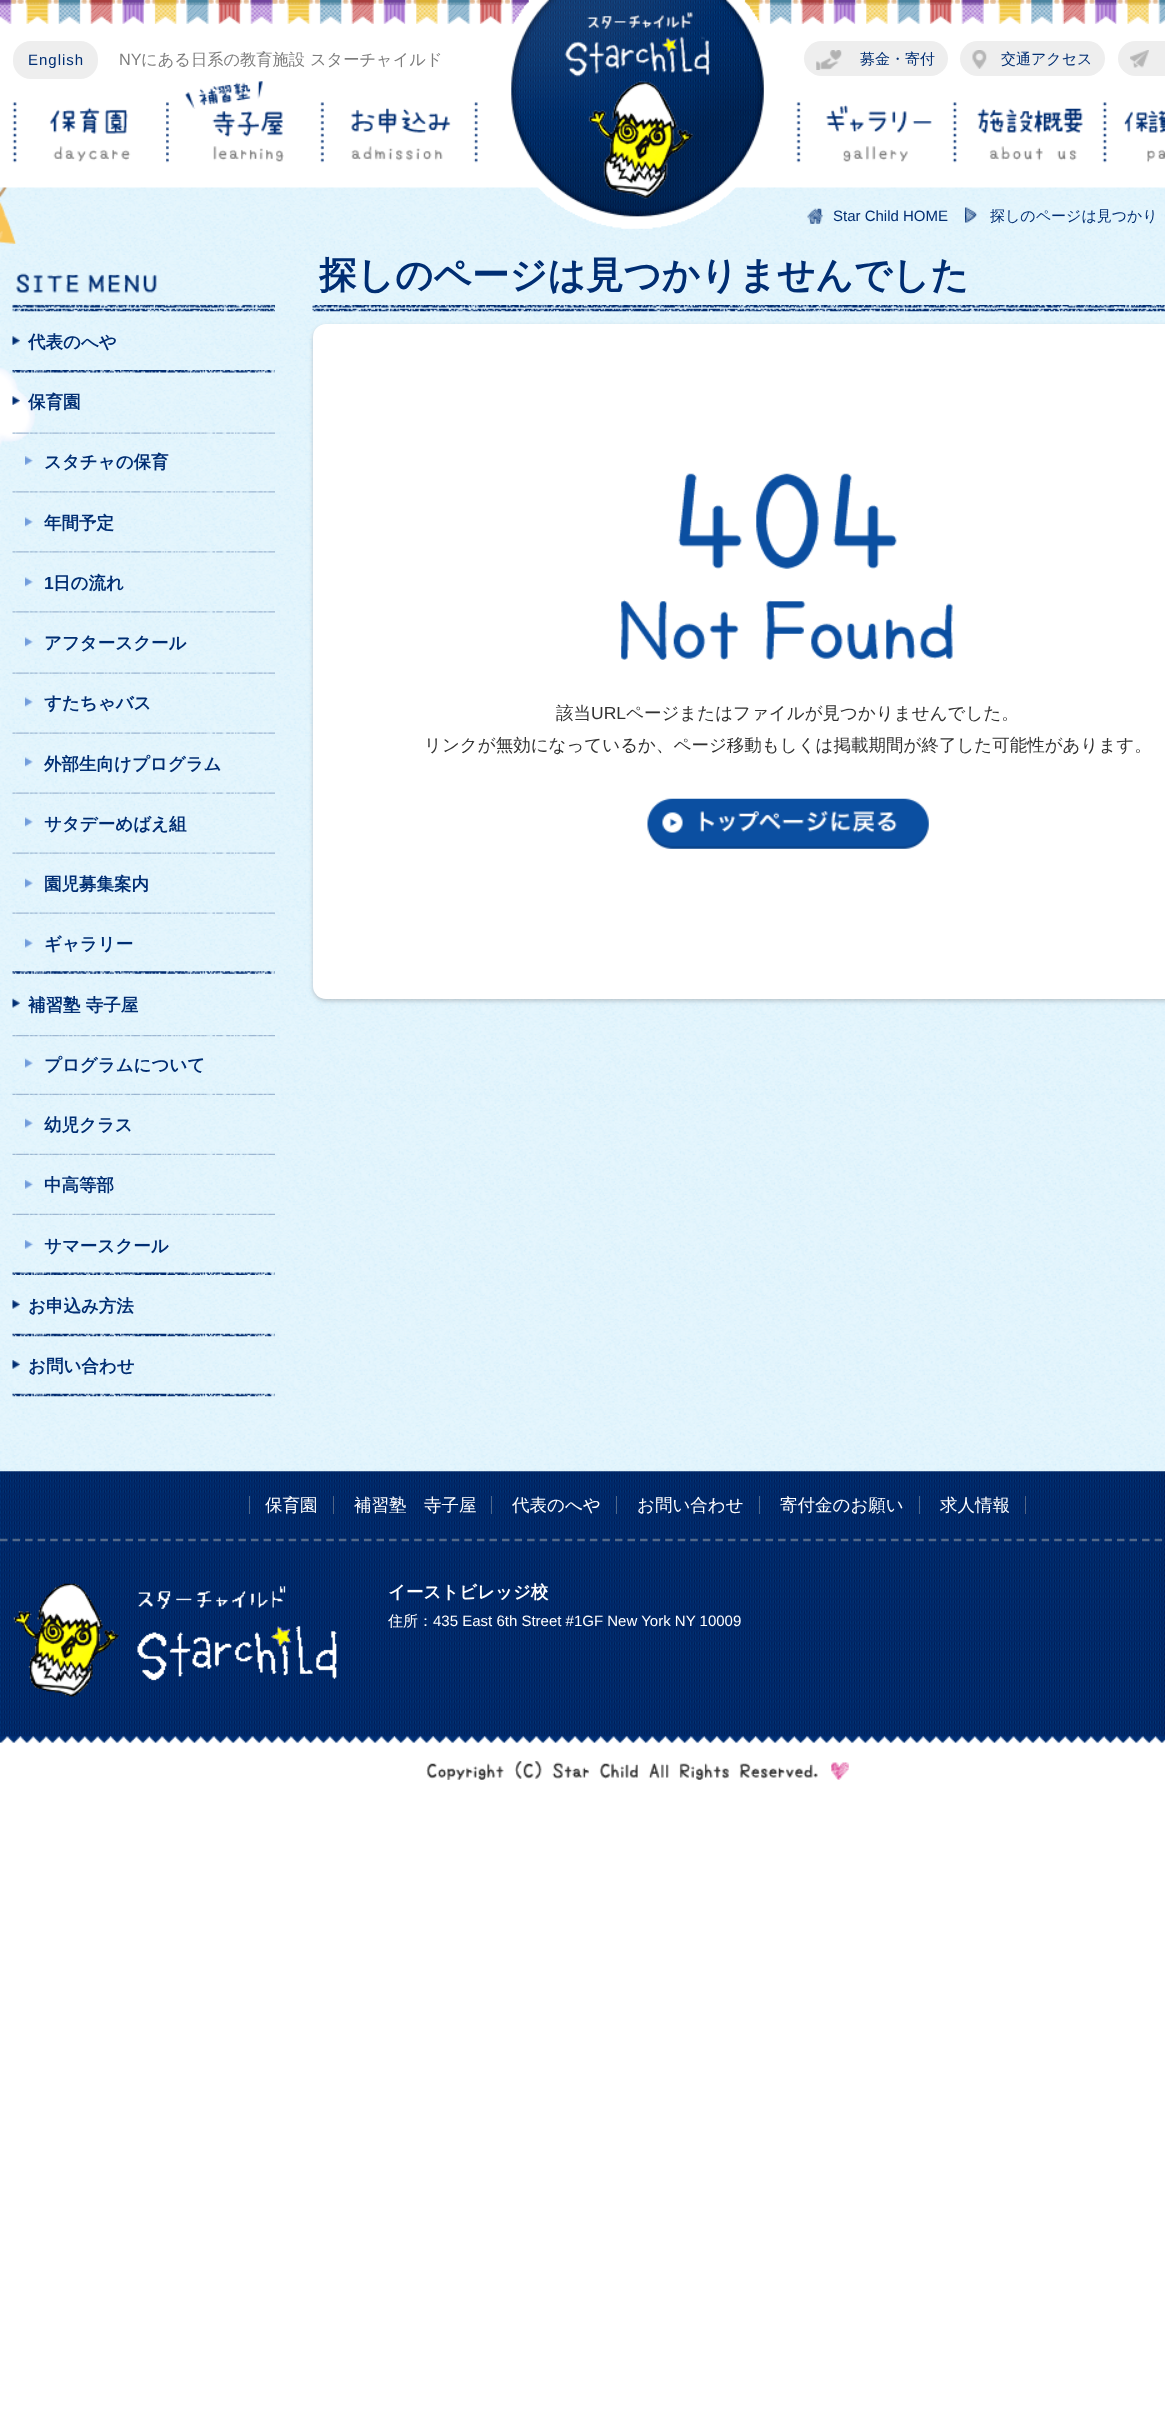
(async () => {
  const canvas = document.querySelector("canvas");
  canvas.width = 1165;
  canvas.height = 2419;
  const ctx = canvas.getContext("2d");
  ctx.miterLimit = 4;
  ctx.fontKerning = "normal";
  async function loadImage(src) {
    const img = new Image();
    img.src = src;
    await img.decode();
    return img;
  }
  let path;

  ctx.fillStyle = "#ffffff";
  ctx.fillRect(0, 0, 1165, 2419);
  ctx.drawImage(await loadImage("img/1.png"), 0, 750, 1165, 722);
  ctx.drawImage(await loadImage("img/2.png"), 0, 0, 1165, 24);
  ctx.fillStyle = "#eeeeee";
  ctx.beginPath();
  ctx.roundRect(13, 41, 85, 38, 18);
  ctx.fill();
  ctx.drawImage(await loadImage("img/13.png"), 0, 187, 1165, 563);
  ctx.drawImage(await loadImage("img/3.png"), 511, 0, 253, 229);
  ctx.beginPath();
  ctx.roundRect(804, 41, 144, 35, 17.5);
  ctx.fill();
  ctx.drawImage(await loadImage("img/4.png"), 816, 50, 26, 20);
  ctx.beginPath();
  ctx.roundRect(960, 41, 145, 35, 17.5);
  ctx.fill();
  ctx.drawImage(await loadImage("img/5.png"), 972, 50, 15, 19);
  ctx.beginPath();
  ctx.roundRect(1118, 41, 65, 35, 17.5);
  ctx.fill();
  ctx.drawImage(await loadImage("img/6.png"), 1130, 50, 19, 18);
  ctx.drawImage(await loadImage("img/7.png"), 12, 102, 119, 61);
  ctx.drawImage(await loadImage("img/8.png"), 166, 81, 118, 82);
  ctx.drawImage(await loadImage("img/9.png"), 320, 102, 158, 61);
  ctx.drawImage(await loadImage("img/10.png"), 796, 102, 136, 61);
  ctx.drawImage(await loadImage("img/11.png"), 952, 102, 131, 61);
  ctx.drawImage(await loadImage("img/12.png"), 1102, 102, 63, 61);
  ctx.drawImage(await loadImage("img/14.png"), 807, 208, 16, 16);
  ctx.drawImage(await loadImage("img/15.png"), 965, 207, 12, 16);
  ctx.drawImage(await loadImage("img/16.png"), 12, 273, 263, 39);
  ctx.drawImage(await loadImage("img/17.png"), 12, 370, 263, 3);
  ctx.drawImage(await loadImage("img/18.png"), 12, 336, 8, 9);
  ctx.drawImage(await loadImage("img/19.png"), 12, 971, 263, 3);
  ctx.drawImage(await loadImage("img/20.png"), 12, 396, 8, 9);
  ctx.drawImage(await loadImage("img/21.png"), 12, 432, 263, 2);
  ctx.drawImage(await loadImage("img/22.png"), 12, 491, 263, 2);
  ctx.drawImage(await loadImage("img/23.png"), 25, 456, 8, 9);
  ctx.drawImage(await loadImage("img/24.png"), 12, 551, 263, 2);
  ctx.drawImage(await loadImage("img/25.png"), 25, 517, 8, 10);
  ctx.drawImage(await loadImage("img/26.png"), 12, 611, 263, 2);
  ctx.drawImage(await loadImage("img/27.png"), 25, 577, 8, 10);
  ctx.drawImage(await loadImage("img/28.png"), 12, 672, 263, 2);
  ctx.drawImage(await loadImage("img/29.png"), 25, 637, 8, 10);
  ctx.drawImage(await loadImage("img/30.png"), 12, 732, 263, 2);
  ctx.drawImage(await loadImage("img/31.png"), 25, 697, 8, 10);
  ctx.drawImage(await loadImage("img/32.png"), 12, 792, 263, 2);
  ctx.drawImage(await loadImage("img/33.png"), 25, 757, 8, 10);
  ctx.drawImage(await loadImage("img/34.png"), 12, 852, 263, 2);
  ctx.drawImage(await loadImage("img/35.png"), 25, 817, 8, 10);
  ctx.drawImage(await loadImage("img/36.png"), 12, 912, 263, 2);
  ctx.drawImage(await loadImage("img/37.png"), 25, 878, 8, 10);
  ctx.drawImage(await loadImage("img/38.png"), 25, 938, 8, 10);
  ctx.drawImage(await loadImage("img/39.png"), 12, 1272, 263, 3);
  ctx.drawImage(await loadImage("img/40.png"), 12, 998, 8, 10);
  ctx.drawImage(await loadImage("img/41.png"), 12, 1035, 263, 2);
  ctx.drawImage(await loadImage("img/42.png"), 12, 1093, 263, 2);
  ctx.drawImage(await loadImage("img/43.png"), 25, 1058, 8, 10);
  ctx.drawImage(await loadImage("img/44.png"), 12, 1153, 263, 2);
  ctx.drawImage(await loadImage("img/45.png"), 25, 1118, 8, 10);
  ctx.drawImage(await loadImage("img/46.png"), 12, 1213, 263, 2);
  ctx.drawImage(await loadImage("img/47.png"), 25, 1180, 8, 9);
  ctx.drawImage(await loadImage("img/48.png"), 25, 1240, 8, 9);
  ctx.drawImage(await loadImage("img/49.png"), 12, 1333, 263, 4);
  ctx.drawImage(await loadImage("img/50.png"), 12, 1300, 8, 9);
  ctx.drawImage(await loadImage("img/51.png"), 12, 1393, 263, 4);
  ctx.drawImage(await loadImage("img/52.png"), 12, 1360, 8, 9);
  ctx.drawImage(await loadImage("img/53.png"), 312, 305, 853, 7);
  ctx.fillStyle = "rgba(13, 4, 9, 0.2)";
  ctx.filter = "blur(2px)";
  ctx.beginPath();
  ctx.roundRect(313, 326, 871, 675, 13);
  ctx.fill();
  ctx.filter = "none";
  ctx.fillStyle = "#ffffff";
  ctx.beginPath();
  ctx.roundRect(313, 324, 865, 675, 13);
  ctx.fill();
  ctx.drawImage(await loadImage("img/54.png"), 621, 473, 332, 187);
  ctx.drawImage(await loadImage("img/55.png"), 647, 798, 282, 51);
  ctx.drawImage(await loadImage("img/56.png"), 0, 1471, 1165, 266);
  path = new Path2D("M0 1540H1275");
  ctx.strokeStyle = "#50678a";
  ctx.lineWidth = 2.5;
  ctx.setLineDash([7.5, 5.05]);
  ctx.stroke(path);
  for (const [x, y, w, h, color] of [
    [333, 1496, 1, 18, "#50678a"],
    [249, 1496, 1, 18, "#50678a"],
    [491, 1496, 1, 18, "#50678a"],
    [616, 1496, 1, 18, "#50678a"],
    [759, 1496, 1, 18, "#50678a"],
    [919, 1496, 1, 18, "#50678a"],
    [1025, 1496, 1, 18, "#50678a"],
  ]) {
    ctx.fillStyle = color;
    ctx.fillRect(x, y, w, h);
  }
  ctx.drawImage(await loadImage("img/57.png"), 13, 1583, 324, 114);
  ctx.drawImage(await loadImage("img/58.png"), 0, 1736, 1165, 7);
  ctx.drawImage(await loadImage("img/59.png"), 426, 1761, 423, 19);
  ctx.letterSpacing = "1px";
  ctx.font = "15px Liberation Sans";
  ctx.fillStyle = "#002e73";
  ctx.fillText("English", 28, 65);
  ctx.letterSpacing = "0px";
  ctx.font = "16.25px Liberation Sans";
  ctx.fillStyle = "#7d7d7d";
  ctx.fillText("NY", 119, 65);
  ctx.font = "500 16.25px WenQuanYi Zen Hei";
  ctx.fillText("にある日系の教育施設 スターチャイルド", 141, 65);
  ctx.font = "500 15px WenQuanYi Zen Hei";
  ctx.fillStyle = "#002e73";
  ctx.fillText("募金・寄付", 860, 64);
  ctx.fillText("交通アクセス", 1001, 64);
  ctx.font = "15px Liberation Sans";
  ctx.fillText("Star Child HOME", 833, 221);
  ctx.font = "500 15px WenQuanYi Zen Hei";
  ctx.fillText("探しのページは見つかり", 990, 221);
  ctx.font = "bold 17.5px WenQuanYi Zen Hei";
  for (const [text, x, y] of [
    ["代表のへや", 28, 348],
    ["保育園", 28, 408],
    ["スタチャの保育", 44, 468],
    ["年間予定", 44, 529],
  ]) {
    ctx.fillText(text, x, y);
  }
  ctx.font = "bold 17.5px Liberation Sans";
  ctx.fillText("1", 44, 589);
  ctx.font = "bold 17.5px WenQuanYi Zen Hei";
  for (const [text, x, y] of [
    ["日の流れ", 53, 589],
    ["アフタースクール", 44, 649],
    ["すたちゃバス", 44, 709],
    ["外部生向けプログラム", 44, 770],
    ["サタデーめばえ組", 44, 830],
    ["園児募集案内", 44, 890],
    ["ギャラリー", 44, 950],
    ["補習塾 寺子屋", 28, 1011],
    ["プログラムについて", 44, 1071],
    ["幼児クラス", 44, 1131],
    ["中高等部", 44, 1191],
    ["サマースクール", 44, 1252],
    ["お申込み方法", 28, 1312],
    ["お問い合わせ", 28, 1372],
  ]) {
    ctx.fillText(text, x, y);
  }
  ctx.font = "bold 37.5px WenQuanYi Zen Hei";
  ctx.fillText("探しのページは見つかりませんでした", 319, 288);
  ctx.font = "500 17.5px WenQuanYi Zen Hei";
  ctx.fillStyle = "#313131";
  ctx.fillText("該当", 556, 719);
  ctx.font = "17.5px Liberation Sans";
  ctx.fillText("URL", 591, 719);
  ctx.font = "500 17.5px WenQuanYi Zen Hei";
  ctx.fillText("ページまたはファイルが見つかりませんでした。", 626, 719);
  ctx.fillText("リンクが無効になっているか、ページ移動もしくは掲載期間が終了した可能性があります。", 424, 751);
  ctx.fillStyle = "#ffffff";
  for (const [text, x, y] of [
    ["保育園", 265, 1511],
    ["補習塾　寺子屋", 354, 1511],
    ["代表のへや", 512, 1511],
    ["お問い合わせ", 637, 1511],
    ["寄付金のお願い", 780, 1511],
    ["求人情報", 940, 1511],
  ]) {
    ctx.fillText(text, x, y);
  }
  ctx.font = "bold 17.5px WenQuanYi Zen Hei";
  ctx.fillText("イーストビレッジ校", 388, 1598);
  ctx.font = "500 15px WenQuanYi Zen Hei";
  ctx.fillText("住所：", 388, 1626);
  ctx.font = "15px Liberation Sans";
  ctx.fillText("435 East 6th Street #1GF New York NY 10009", 433, 1626);
})();
